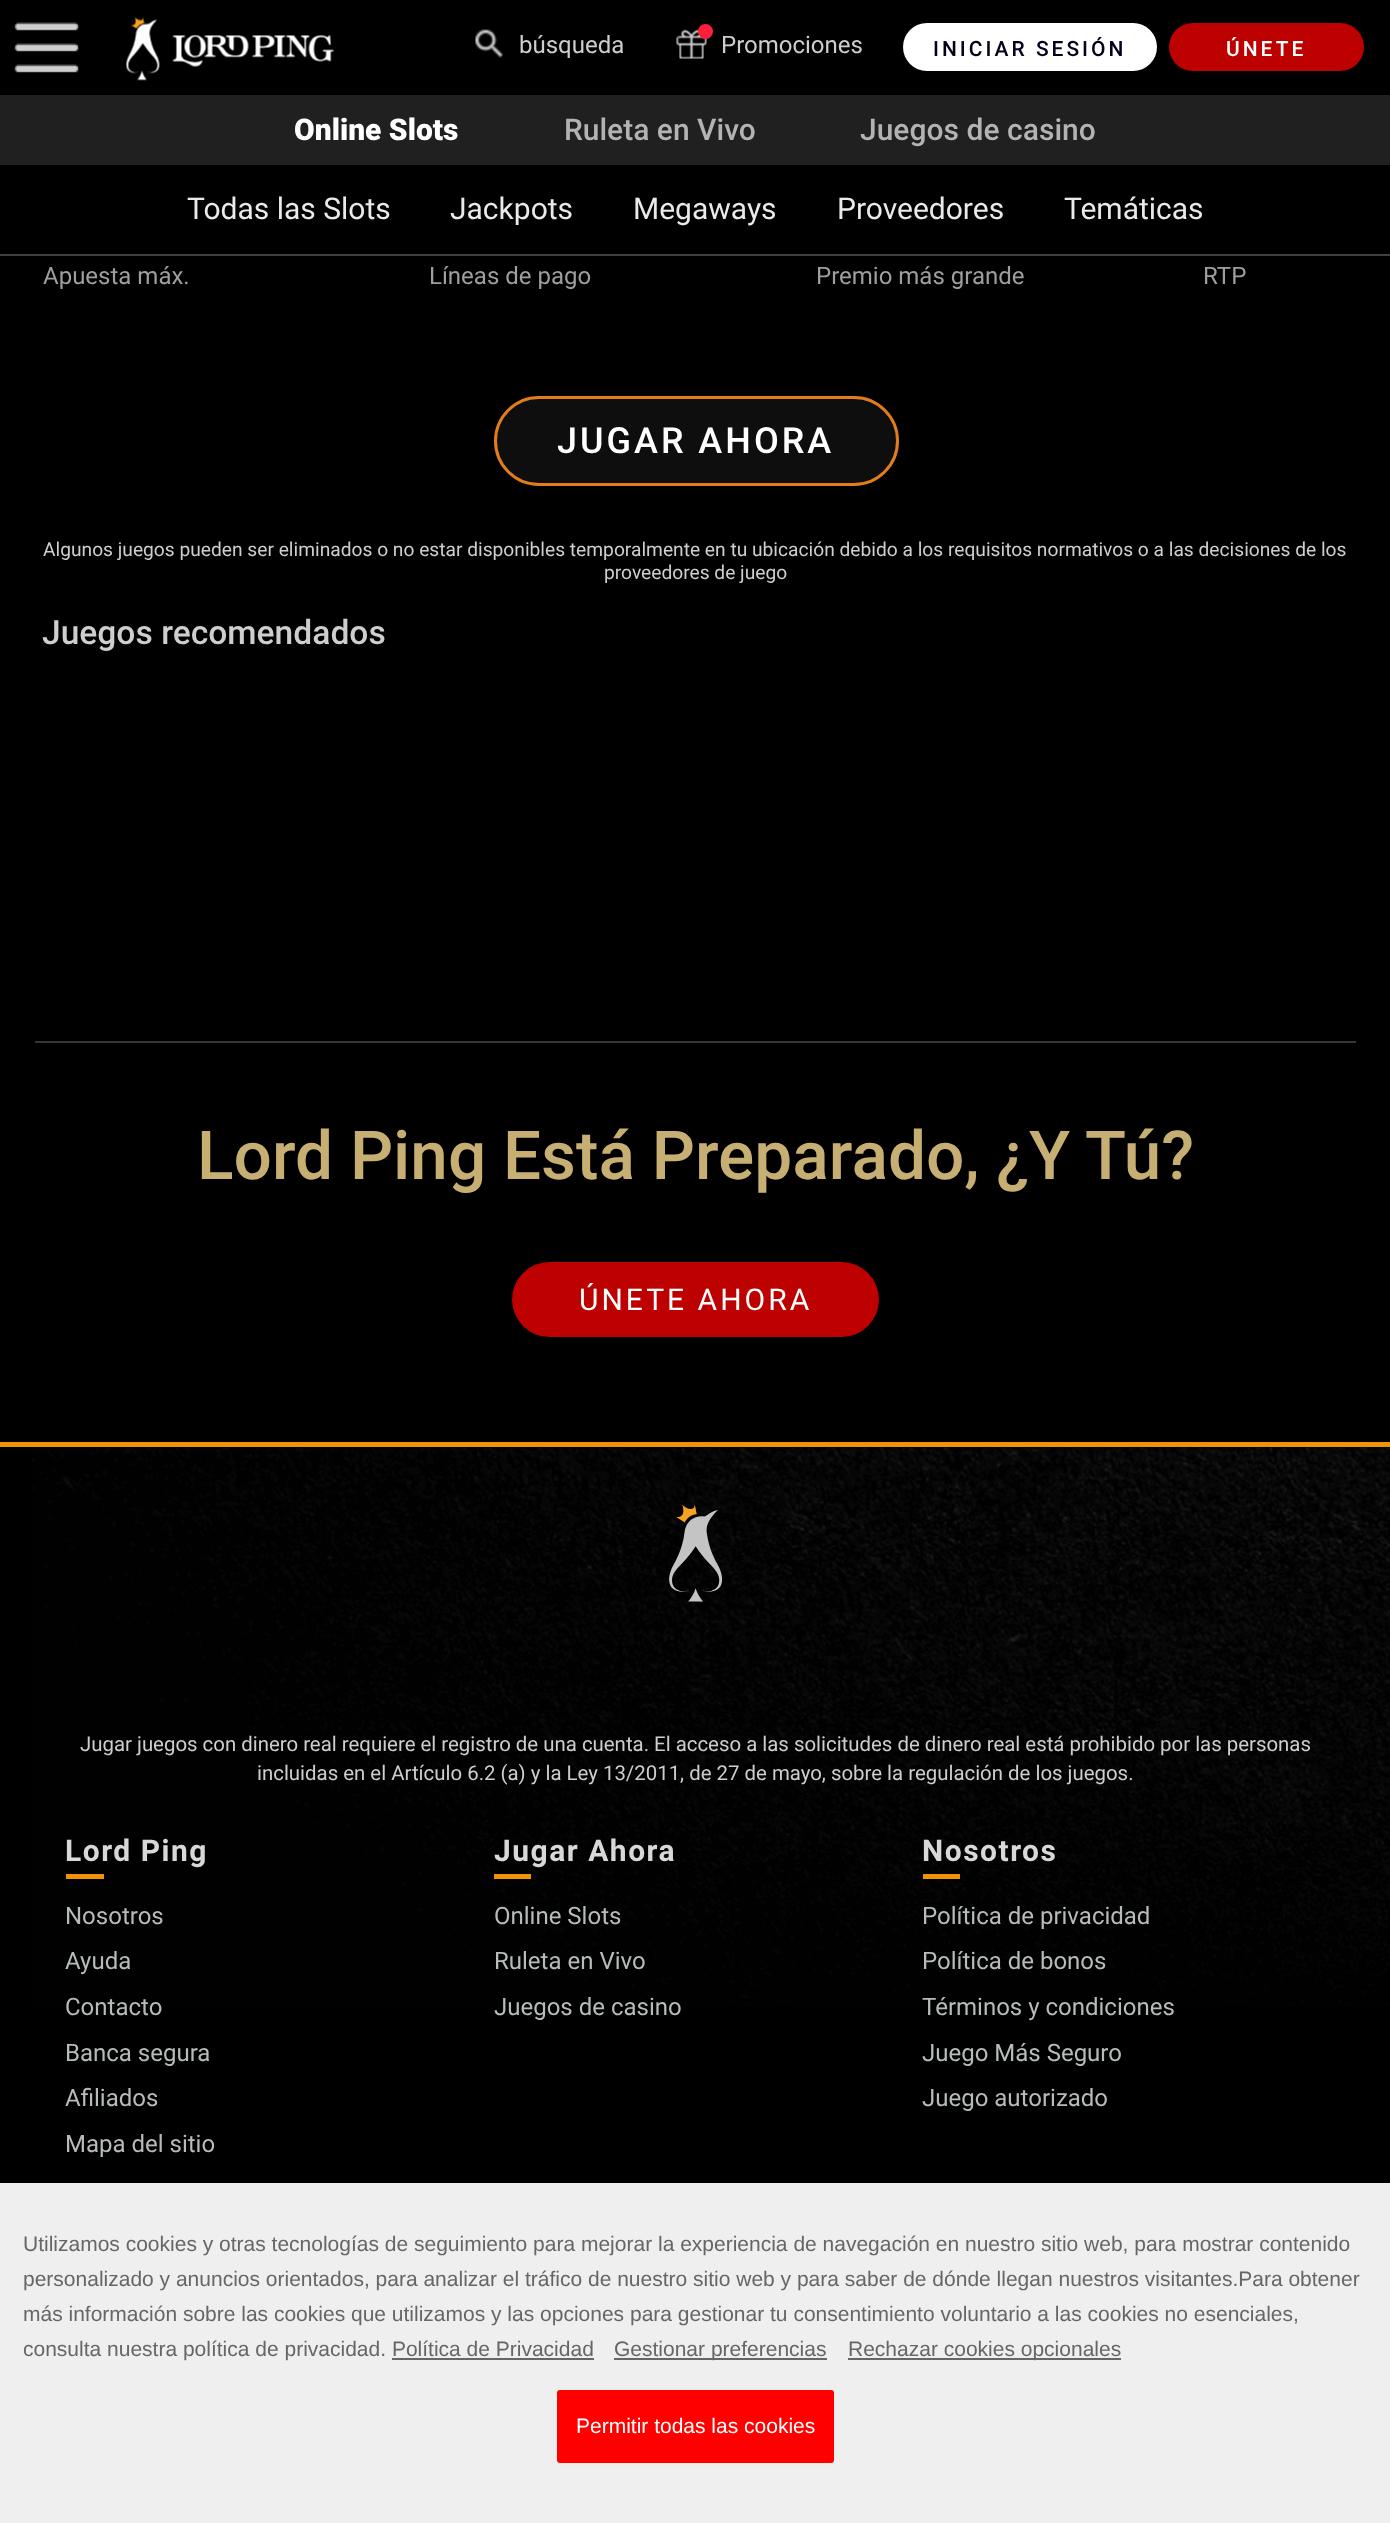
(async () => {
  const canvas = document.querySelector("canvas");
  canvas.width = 1390;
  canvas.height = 2523;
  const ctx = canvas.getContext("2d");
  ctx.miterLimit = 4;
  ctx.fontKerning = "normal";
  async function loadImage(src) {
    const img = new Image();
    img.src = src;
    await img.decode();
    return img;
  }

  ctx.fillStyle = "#000000";
  ctx.fillRect(0, 0, 1390, 2523);
  ctx.drawImage(await loadImage("img/1.png"), 14, 22, 65, 51);
  ctx.drawImage(await loadImage("img/2.png"), 126, 17, 208, 64);
  ctx.drawImage(await loadImage("img/3.png"), 475, 29, 28, 29);
  ctx.drawImage(await loadImage("img/4.png"), 676, 29, 31, 30);
  ctx.fillStyle = "#ff1f3a";
  ctx.beginPath();
  ctx.arc(705.5, 31.5, 7.5, 0, Math.PI * 2);
  ctx.fill();
  ctx.fillStyle = "#ffffff";
  ctx.beginPath();
  ctx.roundRect(903, 23, 254, 48, 24);
  ctx.fill();
  ctx.fillStyle = "#bd0000";
  ctx.beginPath();
  ctx.roundRect(1169, 23, 195, 48, 24);
  ctx.fill();
  ctx.fillStyle = "#202020";
  ctx.fillRect(0, 95, 1390, 70);
  ctx.fillStyle = "#404040";
  ctx.fillRect(0, 254, 1390, 2);
  ctx.fillStyle = "#0e0e0e";
  ctx.beginPath();
  ctx.roundRect(495.5, 397.5, 402, 87, 43.5);
  ctx.fill();
  ctx.strokeStyle = "#e37d1b";
  ctx.lineWidth = 3;
  ctx.stroke();
  ctx.fillStyle = "#363636";
  ctx.fillRect(35, 1041, 1321, 2);
  ctx.fillStyle = "#bd0000";
  ctx.beginPath();
  ctx.roundRect(512, 1262, 367, 75, 37.5);
  ctx.fill();
  ctx.drawImage(await loadImage("img/5.png"), 32, 1447, 1358, 559);
  ctx.fillStyle = "#ef9305";
  ctx.fillRect(0, 1442, 1390, 5);
  ctx.drawImage(await loadImage("img/6.png"), 669, 1505, 54, 97);
  for (const [x, y, w, h, color] of [
    [66, 1874, 38, 5, "#ef9305"],
    [494, 1874, 37, 5, "#ef9305"],
    [923, 1874, 37, 5, "#ef9305"],
    [0, 2183, 1390, 340, "#efefef"],
    [614, 2358, 213, 2, "#666666"],
    [848, 2358, 273, 2, "#666666"],
    [392, 2358, 202, 2, "#666666"],
  ]) {
    ctx.fillStyle = color;
    ctx.fillRect(x, y, w, h);
  }
  ctx.fillStyle = "#ff0000";
  ctx.beginPath();
  ctx.roundRect(557, 2390, 277, 73, 3);
  ctx.fill();
  ctx.font = "24px Roboto";
  ctx.fillStyle = "#cecece";
  ctx.fillText("búsqueda", 519, 53);
  ctx.fillText("Promociones", 721, 53);
  ctx.letterSpacing = "3px";
  ctx.font = "500 21px Roboto";
  ctx.fillStyle = "#03021b";
  ctx.fillText("INICIAR SESIÓN", 933, 56);
  ctx.fillStyle = "#ffffff";
  ctx.fillText("ÚNETE", 1226, 56);
  ctx.letterSpacing = "0px";
  ctx.font = "900 30px Roboto";
  ctx.fillText("Online Slots", 294, 140);
  ctx.font = "500 30px Roboto";
  ctx.fillStyle = "#b3b3b3";
  ctx.fillText("Ruleta en Vivo", 564, 140);
  ctx.fillText("Juegos de casino", 860, 140);
  ctx.font = "30px Roboto";
  ctx.fillStyle = "#eaeaea";
  for (const [text, x, y] of [
    ["Todas las Slots", 187, 219],
    ["Jackpots", 450, 219],
    ["Megaways", 633, 219],
    ["Proveedores", 837, 219],
    ["Temáticas", 1064, 219],
  ]) {
    ctx.fillText(text, x, y);
  }
  ctx.font = "24px Roboto";
  ctx.fillStyle = "#9e9e9e";
  for (const [text, x, y] of [
    ["Apuesta máx.", 43, 284],
    ["Líneas de pago", 429, 284],
    ["Premio más grande", 816, 284],
    ["RTP", 1203, 284],
  ]) {
    ctx.fillText(text, x, y);
  }
  ctx.letterSpacing = "3px";
  ctx.font = "500 36px Roboto";
  ctx.fillStyle = "#ffffff";
  ctx.fillText("JUGAR AHORA", 557, 453);
  ctx.letterSpacing = "0px";
  ctx.font = "19.2px Roboto";
  ctx.fillStyle = "#cecece";
  ctx.fillText("Algunos juegos pueden ser eliminados o no estar disponibles temporalmente en tu ubicación debido a los requisitos normativos o a las decisiones de los", 43, 556);
  ctx.fillText("proveedores de juego", 604, 579);
  ctx.font = "500 33.6px Roboto";
  ctx.fillText("Juegos recomendados", 42, 644);
  ctx.font = "500 67.5px Roboto";
  ctx.fillStyle = "#c7af73";
  ctx.fillText("Lord Ping Está Preparado, ¿Y Tú?", 197, 1179);
  ctx.letterSpacing = "3px";
  ctx.font = "30px Roboto";
  ctx.fillStyle = "#ffffff";
  ctx.fillText("ÚNETE AHORA", 579, 1310);
  ctx.letterSpacing = "0px";
  ctx.font = "20.4px Roboto";
  ctx.fillStyle = "#cecece";
  ctx.fillText("Jugar juegos con dinero real requiere el registro de una cuenta. El acceso a las solicitudes de dinero real está prohibido por las personas", 80, 1751);
  ctx.fillText("incluidas en el Artículo 6.2 (a) y la Ley 13/2011, de 27 de mayo, sobre la regulación de los juegos.", 257, 1780);
  ctx.letterSpacing = "1.5px";
  ctx.font = "bold 30px Roboto";
  ctx.fillStyle = "#d8d8d8";
  ctx.fillText("Lord Ping", 65, 1861);
  ctx.letterSpacing = "0px";
  ctx.font = "24px Roboto";
  ctx.fillStyle = "#b7bbbc";
  for (const [text, x, y] of [
    ["Nosotros", 65, 1924],
    ["Ayuda", 65, 1969],
    ["Contacto", 65, 2015],
    ["Banca segura", 65, 2061],
    ["Afiliados", 65, 2106],
    ["Mapa del sitio", 65, 2152],
  ]) {
    ctx.fillText(text, x, y);
  }
  ctx.letterSpacing = "1.5px";
  ctx.font = "bold 30px Roboto";
  ctx.fillStyle = "#d8d8d8";
  ctx.fillText("Jugar Ahora", 494, 1861);
  ctx.letterSpacing = "0px";
  ctx.font = "24px Roboto";
  ctx.fillStyle = "#b7bbbc";
  for (const [text, x, y] of [
    ["Online Slots", 494, 1924],
    ["Ruleta en Vivo", 494, 1969],
    ["Juegos de casino", 494, 2015],
  ]) {
    ctx.fillText(text, x, y);
  }
  ctx.letterSpacing = "1.5px";
  ctx.font = "bold 30px Roboto";
  ctx.fillStyle = "#d8d8d8";
  ctx.fillText("Nosotros", 922, 1861);
  ctx.letterSpacing = "0px";
  ctx.font = "24px Roboto";
  ctx.fillStyle = "#b7bbbc";
  for (const [text, x, y] of [
    ["Política de privacidad", 922, 1924],
    ["Política de bonos", 922, 1969],
    ["Términos y condiciones", 922, 2015],
    ["Juego Más Seguro", 922, 2061],
    ["Juego autorizado", 922, 2106],
  ]) {
    ctx.fillText(text, x, y);
  }
  ctx.font = "21px Liberation Sans";
  ctx.fillStyle = "#666666";
  for (const [text, x, y] of [
    ["Utilizamos cookies y otras tecnologías de seguimiento para mejorar la experiencia de navegación en nuestro sitio web, para mostrar contenido", 23, 2251],
    ["personalizado y anuncios orientados, para analizar el tráfico de nuestro sitio web y para saber de dónde llegan nuestros visitantes.Para obtener", 23, 2286],
    ["más información sobre las cookies que utilizamos y las opciones para gestionar tu consentimiento voluntario a las cookies no esenciales,", 23, 2321],
    ["consulta nuestra política de privacidad. Política de Privacidad", 23, 2356],
    ["Gestionar preferencias", 614, 2356],
    ["Rechazar cookies opcionales", 848, 2356],
  ]) {
    ctx.fillText(text, x, y);
  }
  ctx.fillStyle = "#ffffff";
  ctx.fillText("Permitir todas las cookies", 576, 2433);
})();
